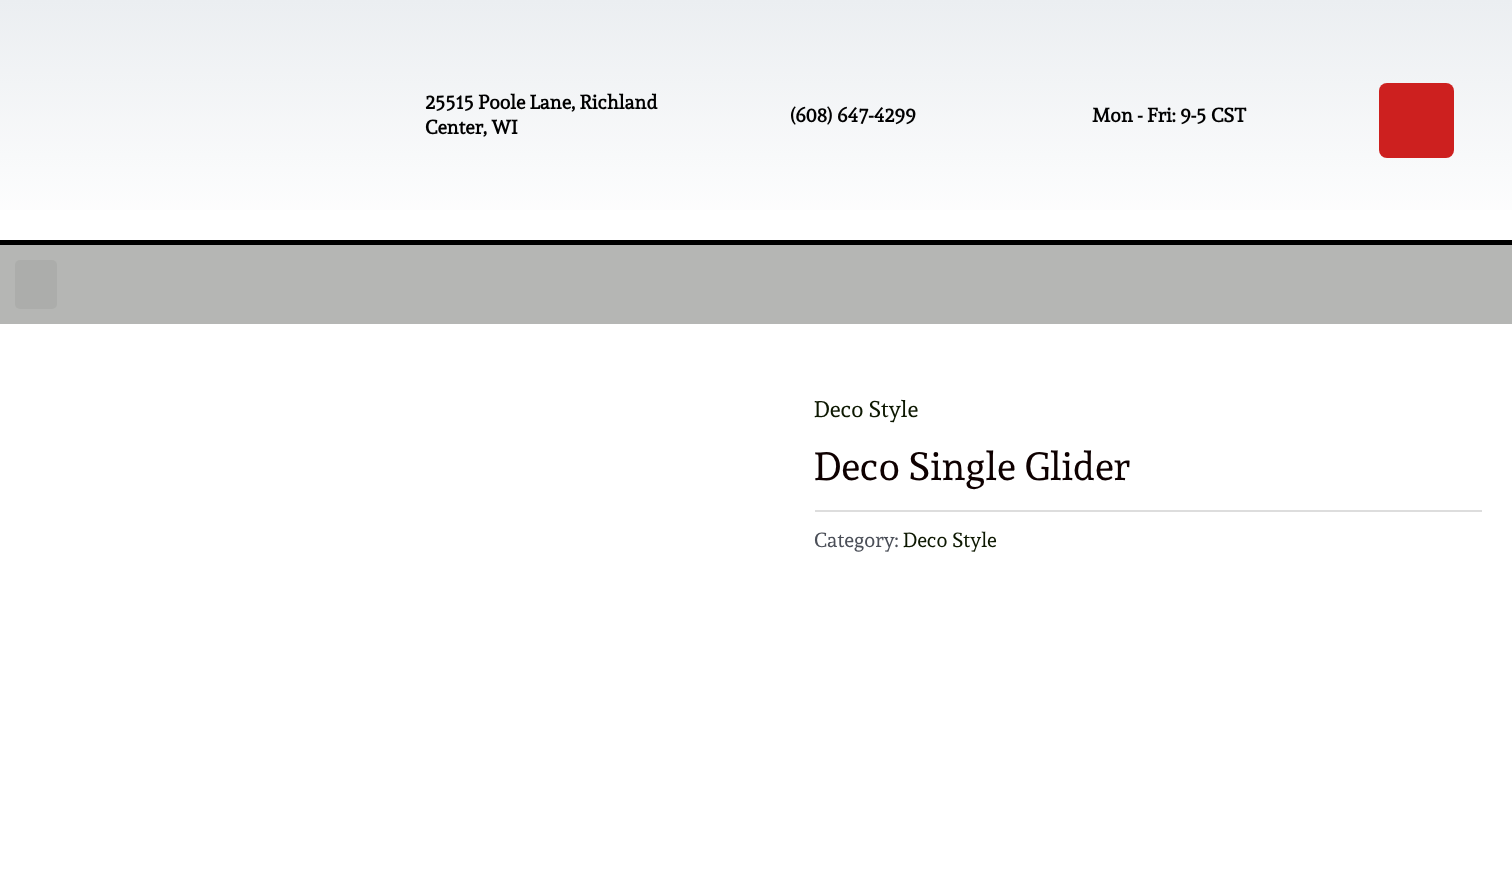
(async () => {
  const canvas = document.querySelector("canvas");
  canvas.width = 1512;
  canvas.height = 870;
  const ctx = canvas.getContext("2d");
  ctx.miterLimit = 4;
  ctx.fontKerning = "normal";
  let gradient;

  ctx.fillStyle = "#ffffff";
  ctx.fillRect(0, 0, 1512, 870);
  gradient = ctx.createLinearGradient(756, 0, 756, 240);
  gradient.addColorStop(0, "#ebeef1");
  gradient.addColorStop(1, "#ffffff");
  ctx.fillStyle = gradient;
  ctx.fillRect(0, 0, 1512, 210);
  ctx.fillStyle = "#cd201f";
  ctx.beginPath();
  ctx.roundRect(1379, 83, 75, 75, 8);
  ctx.fill();
  ctx.fillStyle = "#b5b6b4";
  ctx.fillRect(0, 245, 1512, 79);
  ctx.fillStyle = "#000000";
  ctx.fillRect(0, 240, 1512, 5);
  ctx.fillStyle = "#acadab";
  ctx.beginPath();
  ctx.roundRect(15, 260, 42, 49, 5);
  ctx.fill();
  ctx.fillStyle = "#dddddd";
  ctx.fillRect(815, 510, 667, 2);
  ctx.font = "bold 19.5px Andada";
  ctx.fillStyle = "#000000";
  for (const [text, x, y] of [
    ["25515 Poole Lane, Richland", 425, 109],
    ["Center, WI", 425, 134],
    ["(608) 647-4299", 790, 122],
    ["Mon - Fri: 9-5 CST", 1092, 122],
  ]) {
    ctx.fillText(text, x, y);
  }
  ctx.font = "22.5px Andada";
  ctx.fillStyle = "#0d1801";
  ctx.fillText("Deco Style", 814, 417);
  ctx.font = "39px Andada";
  ctx.fillStyle = "#0e0000";
  ctx.fillText("Deco Single Glider", 814, 480);
  ctx.font = "20.25px Andada";
  ctx.fillStyle = "#4b4f58";
  ctx.fillText("Category:", 814, 547);
  ctx.fillStyle = "#0d1801";
  ctx.fillText("Deco Style", 903, 547);
})();
